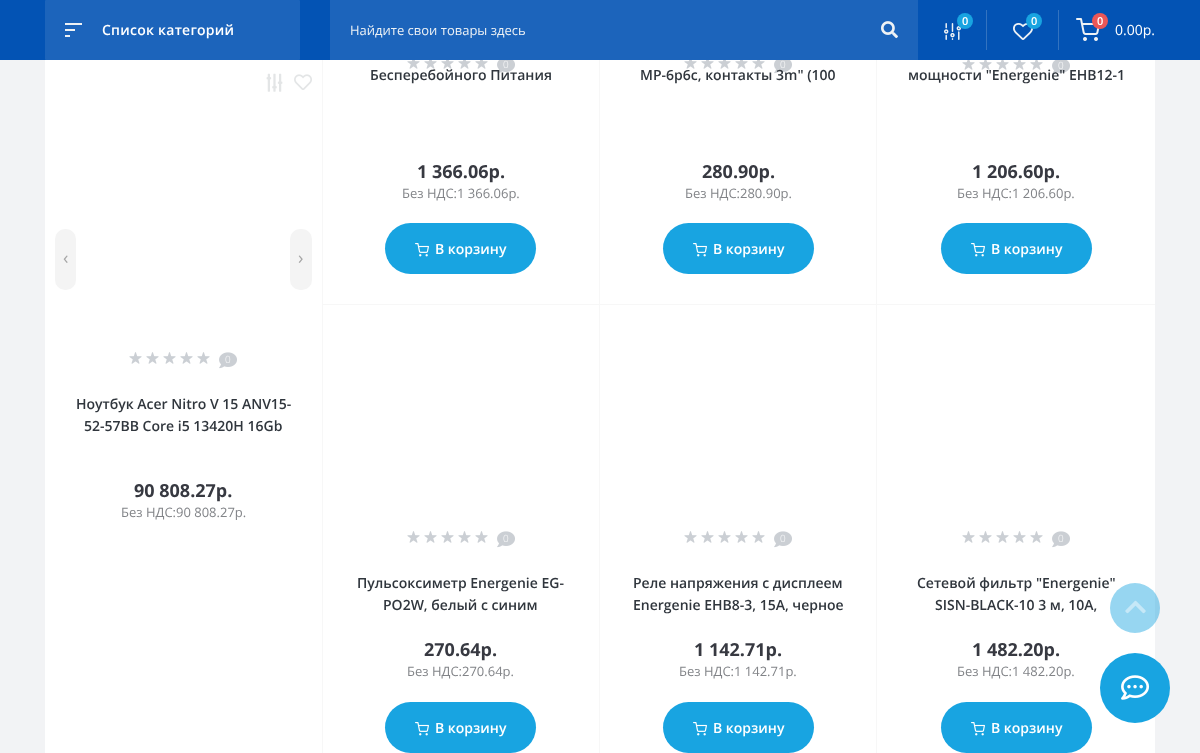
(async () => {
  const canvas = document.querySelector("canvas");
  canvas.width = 1200;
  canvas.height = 753;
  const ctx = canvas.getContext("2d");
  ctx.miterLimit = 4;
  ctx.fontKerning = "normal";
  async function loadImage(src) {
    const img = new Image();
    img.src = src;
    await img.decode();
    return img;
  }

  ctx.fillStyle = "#f2f3f5";
  ctx.fillRect(0, 0, 1200, 753);
  ctx.fillStyle = "#0353b4";
  ctx.fillRect(0, 0, 1200, 60);
  ctx.fillStyle = "#1c64bb";
  ctx.beginPath();
  ctx.roundRect(45, 0, 255, 60, 1);
  ctx.fill();
  for (const [x, y, w, h, color] of [
    [65, 23, 17, 2, "#eef2f5"],
    [65, 29, 10, 2, "#eef2f5"],
    [65, 35, 5, 2, "#eef2f5"],
    [330, 0, 588, 60, "#1c64bb"],
  ]) {
    ctx.fillStyle = color;
    ctx.fillRect(x, y, w, h);
  }
  ctx.drawImage(await loadImage("img/1.png"), 881, 21, 17, 18);
  ctx.drawImage(await loadImage("img/2.png"), 944, 23, 17, 17);
  ctx.fillStyle = "#18a4e1";
  ctx.beginPath();
  ctx.arc(965, 21, 8, 0, Math.PI * 2);
  ctx.fill();
  ctx.fillStyle = "#3373c0";
  ctx.fillRect(986, 10, 1, 40);
  ctx.drawImage(await loadImage("img/3.png"), 1013, 23, 20, 17);
  ctx.fillStyle = "#18a4e1";
  ctx.beginPath();
  ctx.arc(1034, 21, 8, 0, Math.PI * 2);
  ctx.fill();
  ctx.fillStyle = "#3373c0";
  ctx.fillRect(1058, 10, 1, 40);
  ctx.drawImage(await loadImage("img/4.png"), 1076, 18, 24, 23);
  ctx.fillStyle = "#eb5757";
  ctx.beginPath();
  ctx.arc(1100, 21, 8, 0, Math.PI * 2);
  ctx.fill();
  ctx.fillStyle = "#ffffff";
  ctx.fillRect(45, 60, 277, 693);
  ctx.fillStyle = "#f7f7f7";
  ctx.fillRect(322, 60, 1, 693);
  ctx.fillStyle = "#f4f4f4";
  ctx.beginPath();
  ctx.roundRect(55, 229, 21, 61, 10);
  ctx.fill();
  ctx.beginPath();
  ctx.roundRect(290, 229, 22, 61, 10);
  ctx.fill();
  ctx.drawImage(await loadImage("img/5.png"), 266, 73, 17, 19);
  ctx.drawImage(await loadImage("img/6.png"), 294, 74, 18, 16);
  ctx.drawImage(await loadImage("img/7.png"), 129, 352, 13, 12);
  ctx.drawImage(await loadImage("img/7.png"), 146, 352, 13, 12);
  ctx.drawImage(await loadImage("img/7.png"), 163, 352, 13, 12);
  ctx.drawImage(await loadImage("img/7.png"), 180, 352, 13, 12);
  ctx.drawImage(await loadImage("img/7.png"), 197, 352, 13, 12);
  ctx.drawImage(await loadImage("img/8.png"), 219, 352, 18, 17);
  for (const [x, y, w, h, color] of [
    [323, 60, 832, 693, "#ffffff"],
    [599, 60, 1, 693, "#f7f7f7"],
    [323, 304, 277, 1, "#f7f7f7"],
  ]) {
    ctx.fillStyle = color;
    ctx.fillRect(x, y, w, h);
  }
  ctx.drawImage(await loadImage("img/9.png"), 407, 60, 13, 9);
  ctx.drawImage(await loadImage("img/9.png"), 424, 60, 13, 9);
  ctx.drawImage(await loadImage("img/9.png"), 441, 60, 13, 9);
  ctx.drawImage(await loadImage("img/9.png"), 458, 60, 13, 9);
  ctx.drawImage(await loadImage("img/9.png"), 475, 60, 13, 9);
  ctx.drawImage(await loadImage("img/10.png"), 497, 60, 18, 14);
  ctx.fillStyle = "#18a4e1";
  ctx.beginPath();
  ctx.roundRect(385, 223, 151, 51, 25.5);
  ctx.fill();
  ctx.drawImage(await loadImage("img/11.png"), 415, 243, 14, 14);
  ctx.fillStyle = "#f7f7f7";
  ctx.fillRect(876, 60, 1, 693);
  ctx.fillRect(600, 304, 555, 1);
  ctx.drawImage(await loadImage("img/9.png"), 684, 60, 13, 9);
  ctx.drawImage(await loadImage("img/9.png"), 701, 60, 13, 9);
  ctx.drawImage(await loadImage("img/9.png"), 718, 60, 13, 9);
  ctx.drawImage(await loadImage("img/9.png"), 735, 60, 13, 9);
  ctx.drawImage(await loadImage("img/9.png"), 752, 60, 13, 9);
  ctx.drawImage(await loadImage("img/10.png"), 774, 60, 18, 14);
  ctx.fillStyle = "#18a4e1";
  ctx.beginPath();
  ctx.roundRect(663, 223, 151, 51, 25.5);
  ctx.fill();
  ctx.drawImage(await loadImage("img/11.png"), 693, 243, 14, 14);
  ctx.drawImage(await loadImage("img/12.png"), 962, 60, 13, 10);
  ctx.drawImage(await loadImage("img/12.png"), 979, 60, 13, 10);
  ctx.drawImage(await loadImage("img/12.png"), 996, 60, 13, 10);
  ctx.drawImage(await loadImage("img/12.png"), 1013, 60, 13, 10);
  ctx.drawImage(await loadImage("img/12.png"), 1030, 60, 13, 10);
  ctx.drawImage(await loadImage("img/13.png"), 1052, 60, 18, 15);
  ctx.beginPath();
  ctx.roundRect(941, 223, 151, 51, 25.5);
  ctx.fill();
  ctx.drawImage(await loadImage("img/11.png"), 971, 243, 14, 14);
  ctx.drawImage(await loadImage("img/7.png"), 407, 531, 13, 12);
  ctx.drawImage(await loadImage("img/7.png"), 424, 531, 13, 12);
  ctx.drawImage(await loadImage("img/7.png"), 441, 531, 13, 12);
  ctx.drawImage(await loadImage("img/7.png"), 458, 531, 13, 12);
  ctx.drawImage(await loadImage("img/7.png"), 475, 531, 13, 12);
  ctx.drawImage(await loadImage("img/8.png"), 497, 531, 18, 17);
  ctx.beginPath();
  ctx.roundRect(385, 702, 151, 51, 25.5);
  ctx.fill();
  ctx.drawImage(await loadImage("img/11.png"), 415, 722, 14, 14);
  ctx.drawImage(await loadImage("img/7.png"), 684, 531, 13, 12);
  ctx.drawImage(await loadImage("img/7.png"), 701, 531, 13, 12);
  ctx.drawImage(await loadImage("img/7.png"), 718, 531, 13, 12);
  ctx.drawImage(await loadImage("img/7.png"), 735, 531, 13, 12);
  ctx.drawImage(await loadImage("img/7.png"), 752, 531, 13, 12);
  ctx.drawImage(await loadImage("img/8.png"), 774, 531, 18, 17);
  ctx.beginPath();
  ctx.roundRect(663, 702, 151, 51, 25.5);
  ctx.fill();
  ctx.drawImage(await loadImage("img/11.png"), 693, 722, 14, 14);
  ctx.drawImage(await loadImage("img/7.png"), 962, 531, 13, 12);
  ctx.drawImage(await loadImage("img/7.png"), 979, 531, 13, 12);
  ctx.drawImage(await loadImage("img/7.png"), 996, 531, 13, 12);
  ctx.drawImage(await loadImage("img/7.png"), 1013, 531, 13, 12);
  ctx.drawImage(await loadImage("img/7.png"), 1030, 531, 13, 12);
  ctx.drawImage(await loadImage("img/8.png"), 1052, 531, 18, 17);
  ctx.beginPath();
  ctx.roundRect(941, 702, 151, 51, 25.5);
  ctx.fill();
  ctx.drawImage(await loadImage("img/11.png"), 971, 722, 14, 14);
  ctx.beginPath();
  ctx.arc(1135, 688, 35, 0, Math.PI * 2);
  ctx.fill();
  ctx.drawImage(await loadImage("img/15.png"), 1121, 675, 29, 25);
  ctx.letterSpacing = "0.25px";
  ctx.font = "600 14px Open Sans";
  ctx.fillStyle = "#ffffff";
  ctx.fillText("Список категорий", 102, 35);
  ctx.letterSpacing = "0px";
  ctx.font = "13px Open Sans";
  ctx.fillStyle = "#eef2f5";
  ctx.fillText("Найдите свои товары здесь", 350, 35);
  ctx.font = "600 11px Open Sans";
  ctx.fillStyle = "#ffffff";
  for (const [text, x, y] of [
    ["0", 962, 25],
    ["0", 1031, 25],
    ["0", 1097, 25],
  ]) {
    ctx.fillText(text, x, y);
  }
  ctx.font = "14px Open Sans";
  ctx.fillText("0.00р.", 1115, 35);
  ctx.font = "18px Open Sans";
  ctx.fillStyle = "#a6a6a6";
  ctx.fillText("‹", 63, 264);
  ctx.fillText("›", 298, 264);
  ctx.font = "300 10px Open Sans";
  ctx.fillStyle = "#ffffff";
  ctx.fillText("0", 225, 363);
  ctx.font = "600 14px Open Sans";
  ctx.fillStyle = "#30363d";
  ctx.fillText("Ноутбук Acer Nitro V 15 ANV15-", 76, 409);
  ctx.fillText("52-57BB Core i5 13420H 16Gb", 84, 431);
  ctx.font = "bold 18px Open Sans";
  ctx.fillStyle = "#373941";
  ctx.fillText("90 808.27р.", 134, 497);
  ctx.font = "13px Open Sans";
  ctx.fillStyle = "#828488";
  ctx.fillText("Без НДС:90 808.27р.", 121, 517);
  ctx.font = "300 10px Open Sans";
  ctx.fillStyle = "#ffffff";
  ctx.fillText("0", 503, 68);
  ctx.font = "600 14px Open Sans";
  ctx.fillStyle = "#30363d";
  ctx.fillText("Бесперебойного Питания", 370, 80);
  ctx.font = "bold 18px Open Sans";
  ctx.fillStyle = "#373941";
  ctx.fillText("1 366.06р.", 417, 178);
  ctx.font = "13px Open Sans";
  ctx.fillStyle = "#828488";
  ctx.fillText("Без НДС:1 366.06р.", 402, 198);
  ctx.font = "600 14px Open Sans";
  ctx.fillStyle = "#ffffff";
  ctx.fillText("В корзину", 435, 254);
  ctx.font = "300 10px Open Sans";
  ctx.fillText("0", 780, 68);
  ctx.font = "600 14px Open Sans";
  ctx.fillStyle = "#30363d";
  ctx.fillText("MP-6p6c, контакты 3m\" (100", 640, 80);
  ctx.font = "bold 18px Open Sans";
  ctx.fillStyle = "#373941";
  ctx.fillText("280.90р.", 702, 178);
  ctx.font = "13px Open Sans";
  ctx.fillStyle = "#828488";
  ctx.fillText("Без НДС:280.90р.", 685, 198);
  ctx.font = "600 14px Open Sans";
  ctx.fillStyle = "#ffffff";
  ctx.fillText("В корзину", 713, 254);
  ctx.font = "300 10px Open Sans";
  ctx.fillText("0", 1058, 69);
  ctx.font = "600 14px Open Sans";
  ctx.fillStyle = "#30363d";
  ctx.fillText("мощности \"Energenie\" EHB12-1", 908, 80);
  ctx.font = "bold 18px Open Sans";
  ctx.fillStyle = "#373941";
  ctx.fillText("1 206.60р.", 972, 178);
  ctx.font = "13px Open Sans";
  ctx.fillStyle = "#828488";
  ctx.fillText("Без НДС:1 206.60р.", 957, 198);
  ctx.font = "600 14px Open Sans";
  ctx.fillStyle = "#ffffff";
  ctx.fillText("В корзину", 991, 254);
  ctx.font = "300 10px Open Sans";
  ctx.fillText("0", 503, 542);
  ctx.font = "600 14px Open Sans";
  ctx.fillStyle = "#30363d";
  ctx.fillText("Пульсоксиметр Energenie EG-", 357, 588);
  ctx.fillText("PO2W, белый с синим", 383, 610);
  ctx.font = "bold 18px Open Sans";
  ctx.fillStyle = "#373941";
  ctx.fillText("270.64р.", 424, 656);
  ctx.font = "13px Open Sans";
  ctx.fillStyle = "#828488";
  ctx.fillText("Без НДС:270.64р.", 407, 676);
  ctx.font = "600 14px Open Sans";
  ctx.fillStyle = "#ffffff";
  ctx.fillText("В корзину", 435, 733);
  ctx.font = "300 10px Open Sans";
  ctx.fillText("0", 780, 542);
  ctx.font = "600 14px Open Sans";
  ctx.fillStyle = "#30363d";
  ctx.fillText("Реле напряжения c дисплеем", 633, 588);
  ctx.fillText("Energenie EHB8-3, 15A, черное", 633, 610);
  ctx.font = "bold 18px Open Sans";
  ctx.fillStyle = "#373941";
  ctx.fillText("1 142.71р.", 694, 656);
  ctx.font = "13px Open Sans";
  ctx.fillStyle = "#828488";
  ctx.fillText("Без НДС:1 142.71р.", 679, 676);
  ctx.font = "600 14px Open Sans";
  ctx.fillStyle = "#ffffff";
  ctx.fillText("В корзину", 713, 733);
  ctx.font = "300 10px Open Sans";
  ctx.fillText("0", 1058, 542);
  ctx.font = "600 14px Open Sans";
  ctx.fillStyle = "#30363d";
  ctx.fillText("Сетевой фильтр \"Energenie\"", 917, 588);
  ctx.fillText("SISN-BLACK-10 3 м, 10А,", 935, 610);
  ctx.font = "bold 18px Open Sans";
  ctx.fillStyle = "#373941";
  ctx.fillText("1 482.20р.", 972, 656);
  ctx.font = "13px Open Sans";
  ctx.fillStyle = "#828488";
  ctx.fillText("Без НДС:1 482.20р.", 957, 676);
  ctx.font = "600 14px Open Sans";
  ctx.fillStyle = "#ffffff";
  ctx.fillText("В корзину", 991, 733);
  ctx.fillStyle = "rgba(24, 164, 225, 0.45)";
  ctx.beginPath();
  ctx.arc(1135, 608, 25, 0, Math.PI * 2);
  ctx.fill();
  ctx.drawImage(await loadImage("img/14.png"), 1125, 600, 21, 14);
})();
